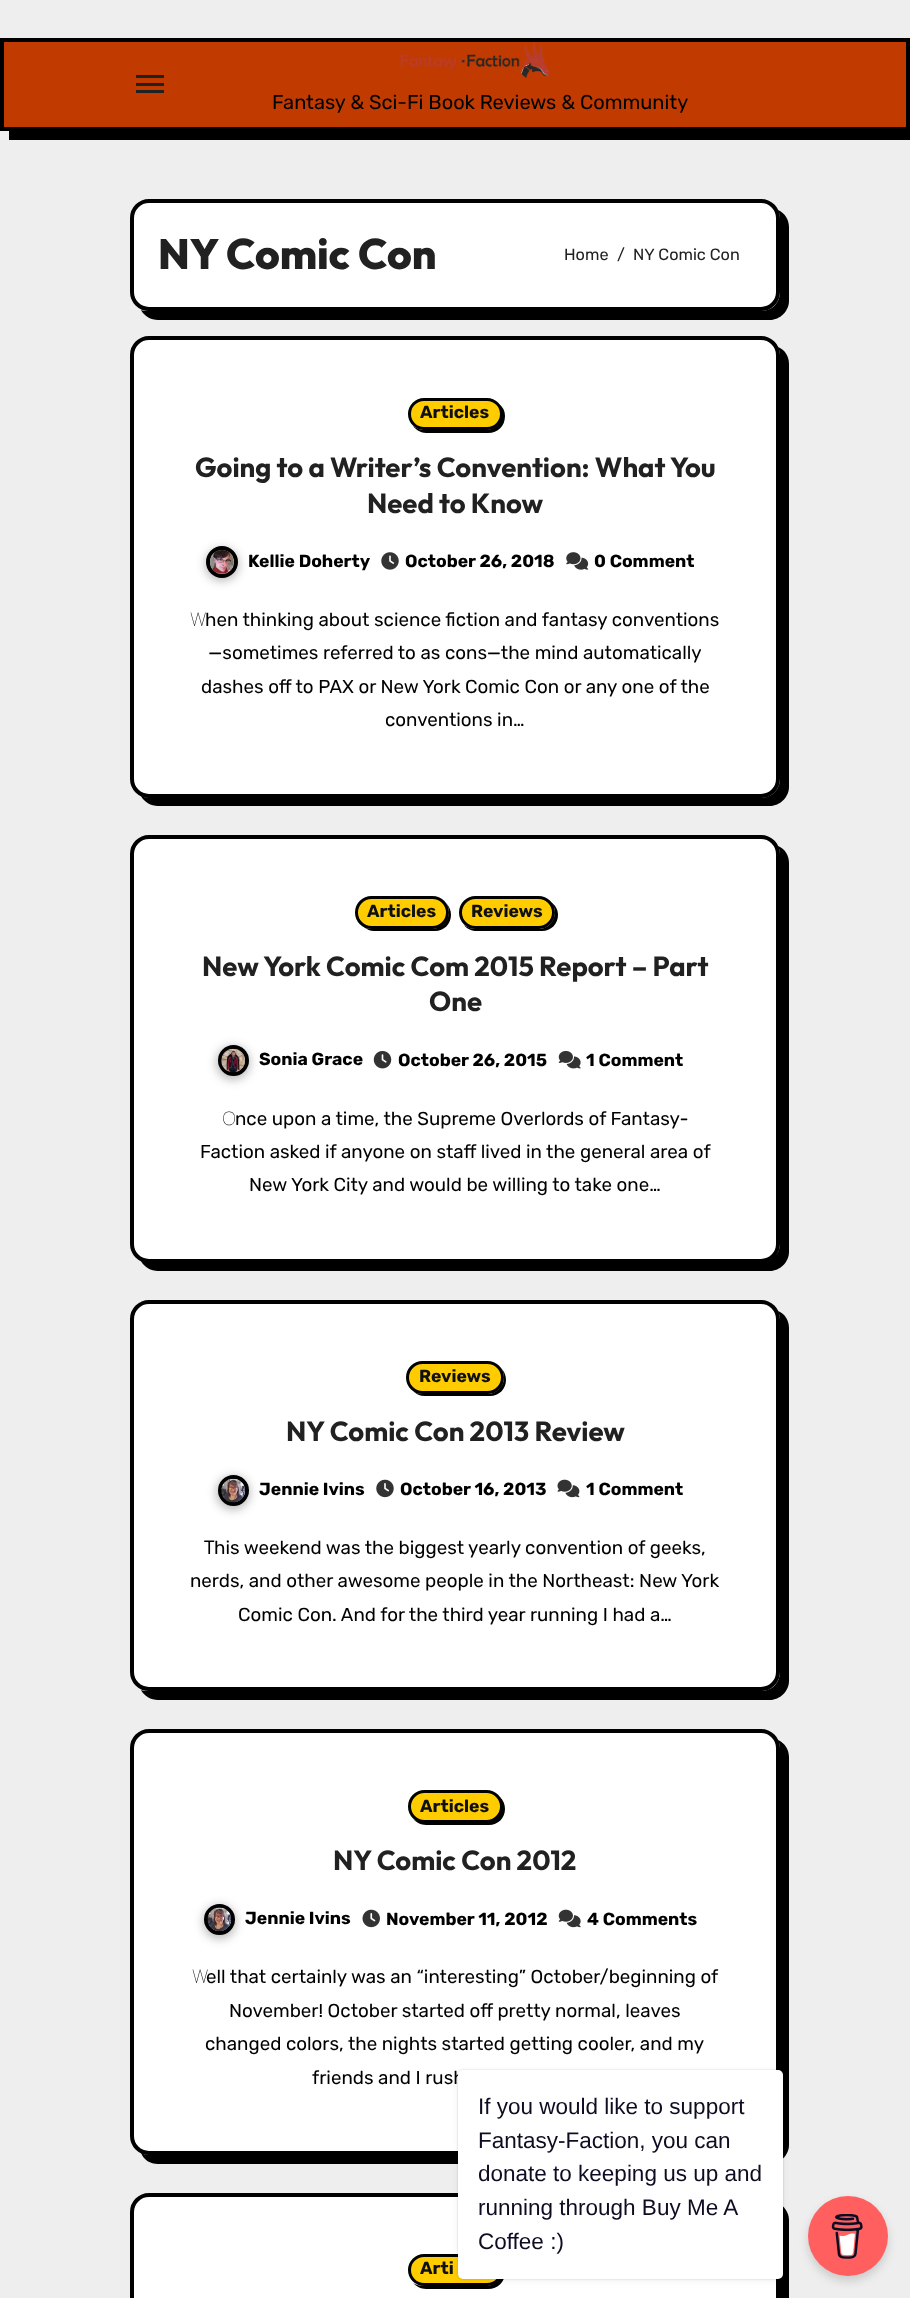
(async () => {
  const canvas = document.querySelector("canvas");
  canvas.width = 910;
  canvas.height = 2298;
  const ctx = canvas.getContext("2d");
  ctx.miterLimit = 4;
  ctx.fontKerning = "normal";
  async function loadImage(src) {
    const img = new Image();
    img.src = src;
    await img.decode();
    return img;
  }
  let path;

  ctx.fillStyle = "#eeeeee";
  ctx.fillRect(0, 0, 910, 2298);
  ctx.fillStyle = "#000000";
  path = new Path2D("M9 131V140H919V46H910V131Z");
  ctx.fill(path);
  ctx.fillStyle = "#c13b00";
  ctx.beginPath();
  ctx.rect(2, 40, 906, 89);
  ctx.fill();
  ctx.strokeStyle = "#000000";
  ctx.lineWidth = 4;
  ctx.stroke();
  for (const [x, y, w, h, color] of [
    [136, 75, 28, 3, "#212121"],
    [136, 83, 28, 3, "#212121"],
    [136, 90, 28, 3, "#212121"],
  ]) {
    ctx.fillStyle = color;
    ctx.fillRect(x, y, w, h);
  }
  ctx.drawImage(await loadImage("img/1.png"), 400, 41, 150, 37);
  ctx.fillStyle = "#000000";
  path = new Path2D("M141 310C144 316 151 320 158 320H770C780 320 789 311 789 301V227C789 220 785 213 778 210C779 212 780 215 780 218V292C780 303 772 311 761 311H149C146 311 143 311 141 310Z");
  ctx.fill(path);
  ctx.fillStyle = "#ffffff";
  ctx.beginPath();
  ctx.roundRect(132, 201, 646, 108, 17);
  ctx.fill();
  ctx.stroke();
  ctx.fillStyle = "#000000";
  path = new Path2D("M141 796C144 802 151 806 158 806H770C780 806 789 797 789 787V364C789 356 785 350 778 347C779 349 780 352 780 355V779C780 789 772 798 761 798H149C146 798 144 797 141 796Z");
  ctx.fill(path);
  ctx.fillStyle = "#ffffff";
  ctx.beginPath();
  ctx.roundRect(132, 338, 646, 458, 17);
  ctx.fill();
  ctx.stroke();
  ctx.fillStyle = "#000000";
  path = new Path2D("M413 426C416 430 421 433 426 433H488C498 433 505 426 505 416C505 411 503 407 499 404C501 407 502 410 502 414C502 423 495 430 486 430H424C420 430 416 428 413 426Z");
  ctx.fill(path);
  ctx.fillStyle = "#ffcc00";
  ctx.beginPath();
  ctx.roundRect(409.5, 399.5, 92, 29, 14.5);
  ctx.fill();
  ctx.lineWidth = 3;
  ctx.stroke();
  ctx.fillStyle = "rgba(33, 33, 33, 0.3)";
  ctx.filter = "blur(5px)";
  ctx.beginPath();
  ctx.roundRect(205, 548, 34, 33, 16.5);
  ctx.fill();
  ctx.filter = "none";
  ctx.beginPath();
  ctx.arc(222, 562, 14, 0, Math.PI * 2);
  ctx.lineWidth = 4;
  ctx.stroke();
  ctx.drawImage(await loadImage("img/2.png"), 210, 550, 24, 24);
  ctx.drawImage(await loadImage("img/3.png"), 381, 552, 18, 18);
  ctx.drawImage(await loadImage("img/4.png"), 566, 552, 23, 18);
  ctx.fillStyle = "#000000";
  path = new Path2D("M141 1261C144 1267 151 1271 158 1271H770C780 1271 789 1262 789 1252V863C789 855 785 849 778 846C779 848 780 851 780 854V1244C780 1254 772 1262 761 1262H149C146 1262 144 1262 141 1261Z");
  ctx.fill(path);
  ctx.fillStyle = "#ffffff";
  ctx.beginPath();
  ctx.roundRect(132, 837, 646, 424, 17);
  ctx.fill();
  ctx.stroke();
  ctx.fillStyle = "#000000";
  path = new Path2D("M363 926C366 929 370 931 374 931H435C444 931 451 924 451 915C451 910 449 906 446 903C448 906 449 909 449 912C449 921 441 929 432 929H371C368 929 365 928 363 926Z");
  ctx.fill(path);
  ctx.fillStyle = "#ffcc00";
  ctx.beginPath();
  ctx.roundRect(356.5, 897.5, 91, 30, 15);
  ctx.fill();
  ctx.lineWidth = 3;
  ctx.stroke();
  ctx.fillStyle = "#000000";
  path = new Path2D("M464 925C467 929 472 931 477 931H542C551 931 558 924 558 915C558 909 555 905 551 902C553 905 555 908 555 912C555 921 548 929 539 929H475C471 929 467 927 464 925Z");
  ctx.fill(path);
  ctx.fillStyle = "#ffcc00";
  ctx.beginPath();
  ctx.roundRect(460.5, 897.5, 93, 30, 15);
  ctx.fill();
  ctx.stroke();
  ctx.fillStyle = "rgba(33, 33, 33, 0.3)";
  ctx.filter = "blur(5px)";
  ctx.beginPath();
  ctx.roundRect(216, 1046, 34, 34, 17);
  ctx.fill();
  ctx.filter = "none";
  ctx.beginPath();
  ctx.arc(233.5, 1060.5, 13.5, 0, Math.PI * 2);
  ctx.lineWidth = 4;
  ctx.stroke();
  ctx.drawImage(await loadImage("img/5.png"), 221, 1048, 24, 25);
  ctx.drawImage(await loadImage("img/6.png"), 373, 1050, 19, 19);
  ctx.drawImage(await loadImage("img/7.png"), 558, 1050, 23, 19);
  ctx.fillStyle = "#000000";
  path = new Path2D("M141 1690C144 1696 151 1700 158 1700H770C780 1700 789 1691 789 1681V1328C789 1320 785 1314 778 1311C779 1313 780 1316 780 1319V1672C780 1683 772 1691 761 1691H149C146 1691 143 1691 141 1690Z");
  ctx.fill(path);
  ctx.fillStyle = "#ffffff";
  ctx.beginPath();
  ctx.roundRect(132, 1302, 646, 387, 17);
  ctx.fill();
  ctx.stroke();
  ctx.fillStyle = "#000000";
  path = new Path2D("M413 1391C416 1394 420 1396 425 1396H490C499 1396 506 1389 506 1380C506 1375 504 1371 501 1368C503 1371 504 1374 504 1378C504 1386 496 1394 488 1394H422C419 1394 416 1393 413 1391Z");
  ctx.fill(path);
  ctx.fillStyle = "#ffcc00";
  ctx.beginPath();
  ctx.roundRect(407.5, 1362.5, 95, 30, 15);
  ctx.fill();
  ctx.lineWidth = 3;
  ctx.stroke();
  ctx.fillStyle = "rgba(33, 33, 33, 0.3)";
  ctx.filter = "blur(5px)";
  ctx.beginPath();
  ctx.roundRect(216, 1476, 34, 34, 17);
  ctx.fill();
  ctx.filter = "none";
  ctx.beginPath();
  ctx.arc(233.5, 1490.5, 13.5, 0, Math.PI * 2);
  ctx.lineWidth = 4;
  ctx.stroke();
  ctx.drawImage(await loadImage("img/8.png"), 221, 1478, 24, 25);
  ctx.drawImage(await loadImage("img/9.png"), 376, 1479, 18, 19);
  ctx.drawImage(await loadImage("img/10.png"), 557, 1479, 23, 19);
  ctx.fillStyle = "#000000";
  path = new Path2D("M141 2153C144 2160 150 2164 158 2164H770C780 2164 789 2155 789 2145V1757C789 1750 785 1743 778 1740C779 1742 780 1745 780 1748V2136C780 2147 772 2155 761 2155H149C146 2155 143 2154 141 2153Z");
  ctx.fill(path);
  ctx.fillStyle = "#ffffff";
  ctx.beginPath();
  ctx.roundRect(132, 1731, 646, 422, 17);
  ctx.fill();
  ctx.stroke();
  ctx.fillStyle = "#000000";
  path = new Path2D("M413 1819C416 1822 421 1825 426 1825H489C498 1825 505 1818 505 1809C505 1804 503 1800 500 1797C501 1800 502 1803 502 1806C502 1815 495 1822 486 1822H424C420 1822 416 1821 413 1819Z");
  ctx.fill(path);
  ctx.fillStyle = "#ffcc00";
  ctx.beginPath();
  ctx.roundRect(409.5, 1791.5, 92, 30, 15);
  ctx.fill();
  ctx.lineWidth = 3;
  ctx.stroke();
  ctx.fillStyle = "rgba(33, 33, 33, 0.3)";
  ctx.filter = "blur(5px)";
  ctx.beginPath();
  ctx.roundRect(203, 1905, 33, 34, 16.5);
  ctx.fill();
  ctx.filter = "none";
  ctx.beginPath();
  ctx.arc(219.5, 1919.5, 13.5, 0, Math.PI * 2);
  ctx.lineWidth = 4;
  ctx.stroke();
  ctx.drawImage(await loadImage("img/11.png"), 207, 1907, 25, 24);
  ctx.drawImage(await loadImage("img/12.png"), 362, 1909, 18, 19);
  ctx.drawImage(await loadImage("img/13.png"), 558, 1909, 23, 19);
  ctx.fillStyle = "#000000";
  path = new Path2D("M141 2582C144 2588 150 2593 158 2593H770C780 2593 789 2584 789 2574V2220C789 2212 784 2206 778 2203C779 2205 780 2208 780 2211V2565C780 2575 772 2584 761 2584H149C146 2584 143 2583 141 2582Z");
  ctx.fill(path);
  ctx.fillStyle = "#ffffff";
  ctx.beginPath();
  ctx.roundRect(132, 2195, 646, 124, 17);
  ctx.fill();
  ctx.stroke();
  ctx.fillStyle = "#000000";
  path = new Path2D("M413 2283C416 2286 421 2289 426 2289H488C498 2289 505 2282 505 2272C505 2267 503 2262 499 2259C501 2262 502 2266 502 2270C502 2279 495 2286 486 2286H424C420 2286 416 2285 413 2283Z");
  ctx.fill(path);
  ctx.fillStyle = "#ffcc00";
  ctx.beginPath();
  ctx.roundRect(409.5, 2255.5, 92, 29, 14.5);
  ctx.fill();
  ctx.lineWidth = 3;
  ctx.stroke();
  ctx.fillStyle = "rgba(0, 0, 0, 0.15)";
  ctx.filter = "blur(1px)";
  ctx.beginPath();
  ctx.roundRect(458, 2070, 325, 209, 5);
  ctx.fill();
  ctx.filter = "none";
  ctx.fillStyle = "rgba(0, 0, 0, 0.05)";
  ctx.filter = "blur(3px)";
  ctx.beginPath();
  ctx.roundRect(458, 2073, 325, 208, 5);
  ctx.fill();
  ctx.filter = "none";
  ctx.fillStyle = "rgba(0, 0, 0, 0.15)";
  ctx.filter = "blur(5px)";
  ctx.beginPath();
  ctx.roundRect(808, 2201, 80, 80, 40);
  ctx.fill();
  ctx.filter = "none";
  ctx.fillStyle = "#ff5f5f";
  ctx.beginPath();
  ctx.arc(848, 2236, 40, 0, Math.PI * 2);
  ctx.fill();
  ctx.drawImage(await loadImage("img/14.png"), 831, 2214, 32, 45);
  ctx.font = "300 20px Rubik";
  ctx.fillStyle = "#000000";
  ctx.fillText("Fantasy & Sci-Fi Book Reviews & Community", 272, 109);
  ctx.font = "800 42.5px Outfit";
  ctx.fillStyle = "#212121";
  ctx.fillText("NY Comic Con", 158, 269);
  ctx.font = "300 16.25px Rubik";
  for (const [text, x, y] of [
    ["Home", 564, 260],
    ["/", 617, 260],
    ["NY Comic Con", 633, 260],
  ]) {
    ctx.fillText(text, x, y);
  }
  ctx.font = "bold 17.5px Rubik";
  ctx.fillStyle = "#0f1012";
  ctx.fillText("Articles", 420, 418);
  ctx.font = "bold 27.5px Outfit";
  ctx.fillStyle = "#212121";
  ctx.fillText("Going to a Writer’s Convention: What You", 195, 477);
  ctx.fillText("Need to Know", 367, 513);
  ctx.font = "bold 17.5px Rubik";
  ctx.fillStyle = "#000000";
  for (const [text, x, y] of [
    ["Kellie Doherty", 248, 567],
    ["October 26, 2018", 405, 567],
    ["0 Comment", 594, 567],
  ]) {
    ctx.fillText(text, x, y);
  }
  ctx.font = "100 18.75px Noto Sans";
  ctx.fillText("W", 190, 626);
  ctx.font = "300 18.75px Rubik";
  for (const [text, x, y] of [
    ["hen thinking about science fiction and fantasy conventions", 205, 626],
    ["—sometimes referred to as cons—the mind automatically", 208, 659],
    ["dashes off to PAX or New York Comic Con or any one of the", 201, 693],
    ["conventions in…", 385, 726],
  ]) {
    ctx.fillText(text, x, y);
  }
  ctx.font = "bold 17.5px Rubik";
  ctx.fillStyle = "#0f1012";
  ctx.fillText("Articles", 367, 917);
  ctx.fillText("Reviews", 471, 917);
  ctx.font = "bold 27.5px Outfit";
  ctx.fillStyle = "#212121";
  ctx.fillText("New York Comic Com 2015 Report – Part", 202, 976);
  ctx.fillText("One", 429, 1011);
  ctx.font = "bold 17.5px Rubik";
  ctx.fillStyle = "#000000";
  for (const [text, x, y] of [
    ["Sonia Grace", 259, 1065],
    ["October 26, 2015", 398, 1066],
    ["1 Comment", 586, 1066],
  ]) {
    ctx.fillText(text, x, y);
  }
  ctx.font = "100 18.75px Noto Sans";
  ctx.fillText("O", 222, 1125);
  ctx.font = "300 18.75px Rubik";
  for (const [text, x, y] of [
    ["nce upon a time, the Supreme Overlords of Fantasy-", 235, 1125],
    ["Faction asked if anyone on staff lived in the general area of", 200, 1158],
    ["New York City and would be willing to take one…", 249, 1191],
  ]) {
    ctx.fillText(text, x, y);
  }
  ctx.font = "bold 17.5px Rubik";
  ctx.fillStyle = "#0f1012";
  ctx.fillText("Reviews", 419, 1382);
  ctx.font = "bold 27.5px Outfit";
  ctx.fillStyle = "#212121";
  ctx.fillText("NY Comic Con 2013 Review", 286, 1441);
  ctx.font = "bold 17.5px Rubik";
  ctx.fillStyle = "#000000";
  for (const [text, x, y] of [
    ["Jennie Ivins", 259, 1495],
    ["October 16, 2013", 400, 1495],
    ["1 Comment", 586, 1495],
  ]) {
    ctx.fillText(text, x, y);
  }
  ctx.font = "18.75px Noto Sans";
  ctx.fillText("T", 204, 1554);
  ctx.font = "300 18.75px Rubik";
  for (const [text, x, y] of [
    ["his weekend was the biggest yearly convention of geeks,", 214, 1554],
    ["nerds, and other awesome people in the Northeast: New York", 190, 1587],
    ["Comic Con. And for the third year running I had a…", 238, 1621],
  ]) {
    ctx.fillText(text, x, y);
  }
  ctx.font = "bold 17.5px Rubik";
  ctx.fillStyle = "#0f1012";
  ctx.fillText("Articles", 420, 1812);
  ctx.font = "bold 27.5px Outfit";
  ctx.fillStyle = "#212121";
  ctx.fillText("NY Comic Con 2012", 333, 1870);
  ctx.font = "bold 17.5px Rubik";
  ctx.fillStyle = "#000000";
  for (const [text, x, y] of [
    ["Jennie Ivins", 245, 1924],
    ["November 11, 2012", 386, 1925],
    ["4 Comments", 587, 1925],
  ]) {
    ctx.fillText(text, x, y);
  }
  ctx.font = "100 18.75px Noto Sans";
  ctx.fillText("W", 192, 1983);
  ctx.font = "300 18.75px Rubik";
  for (const [text, x, y] of [
    ["ell that certainly was an “interesting” October/beginning of", 206, 1983],
    ["November! October started off pretty normal, leaves", 229, 2017],
    ["changed colors, the nights started getting cooler, and my", 205, 2050],
    ["friends and I rush", 312, 2084],
  ]) {
    ctx.fillText(text, x, y);
  }
  ctx.font = "bold 17.5px Rubik";
  ctx.fillStyle = "#0f1012";
  ctx.fillText("Arti", 420, 2274);
  ctx.fillStyle = "#ffffff";
  ctx.beginPath();
  ctx.roundRect(458, 2070, 325, 209, 5);
  ctx.fill();
  ctx.font = "22.5px Liberation Sans";
  ctx.fillStyle = "#0d0c22";
  for (const [text, x, y] of [
    ["If you would like to support", 478, 2114],
    ["Fantasy-Faction, you can", 478, 2148],
    ["donate to keeping us up and", 478, 2181],
    ["running through Buy Me A", 478, 2215],
    ["Coffee :)", 478, 2249],
  ]) {
    ctx.fillText(text, x, y);
  }
})();
